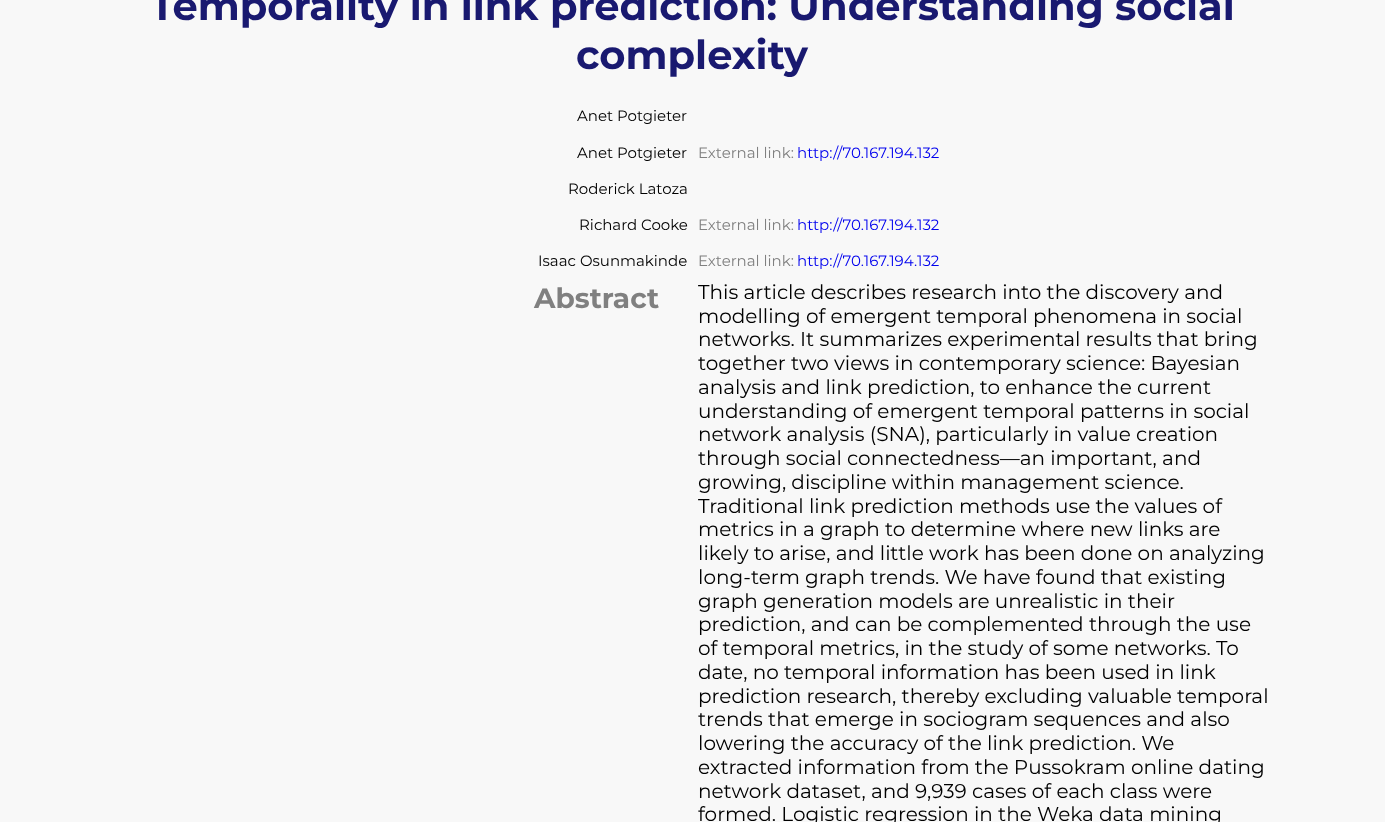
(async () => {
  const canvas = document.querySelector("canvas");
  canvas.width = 1385;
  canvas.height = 822;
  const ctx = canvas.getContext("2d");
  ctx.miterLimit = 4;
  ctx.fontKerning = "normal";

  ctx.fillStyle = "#f8f8f8";
  ctx.fillRect(0, 0, 1385, 822);
  ctx.font = "bold 40px Montserrat";
  ctx.fillStyle = "#191970";
  ctx.fillText("Temporality in link prediction: Understanding social", 150, 20);
  ctx.fillText("complexity", 576, 69);
  ctx.font = "15px Montserrat";
  ctx.fillStyle = "#000000";
  ctx.fillText("Anet Potgieter", 577, 121);
  ctx.fillText("Anet Potgieter", 577, 158);
  ctx.fillStyle = "#808080";
  ctx.fillText("External link:", 698, 158);
  ctx.fillStyle = "#0000ee";
  ctx.fillText("http://70.167.194.132", 797, 158);
  ctx.fillStyle = "#000000";
  ctx.fillText("Roderick Latoza", 568, 194);
  ctx.fillText("Richard Cooke", 579, 230);
  ctx.fillStyle = "#808080";
  ctx.fillText("External link:", 698, 230);
  ctx.fillStyle = "#0000ee";
  ctx.fillText("http://70.167.194.132", 797, 230);
  ctx.fillStyle = "#000000";
  ctx.fillText("Isaac Osunmakinde", 538, 266);
  ctx.fillStyle = "#808080";
  ctx.fillText("External link:", 698, 266);
  ctx.fillStyle = "#0000ee";
  ctx.fillText("http://70.167.194.132", 797, 266);
  ctx.font = "bold 28px Montserrat";
  ctx.fillStyle = "#808080";
  ctx.fillText("Abstract", 534, 308);
  ctx.font = "20px Montserrat";
  ctx.fillStyle = "#000000";
  for (const [text, x, y] of [
    ["This article describes research into the discovery and", 698, 299],
    ["modelling of emergent temporal phenomena in social", 698, 323],
    ["networks. It summarizes experimental results that bring", 698, 346],
    ["together two views in contemporary science: Bayesian", 698, 370],
    ["analysis and link prediction, to enhance the current", 698, 394],
    ["understanding of emergent temporal patterns in social", 698, 418],
    ["network analysis (SNA), particularly in value creation", 698, 441],
    ["through social connectedness—an important, and", 698, 465],
    ["growing, discipline within management science.", 698, 489],
    ["Traditional link prediction methods use the values of", 698, 513],
    ["metrics in a graph to determine where new links are", 698, 536],
    ["likely to arise, and little work has been done on analyzing", 698, 560],
    ["long-term graph trends. We have found that existing", 698, 584],
    ["graph generation models are unrealistic in their", 698, 608],
    ["prediction, and can be complemented through the use", 698, 631],
    ["of temporal metrics, in the study of some networks. To", 698, 655],
    ["date, no temporal information has been used in link", 698, 679],
    ["prediction research, thereby excluding valuable temporal", 698, 703],
    ["trends that emerge in sociogram sequences and also", 698, 726],
    ["lowering the accuracy of the link prediction. We", 698, 750],
    ["extracted information from the Pussokram online dating", 698, 774],
    ["network dataset, and 9,939 cases of each class were", 698, 798],
    ["formed. Logistic regression in the Weka data mining", 698, 821],
  ]) {
    ctx.fillText(text, x, y);
  }
})();
